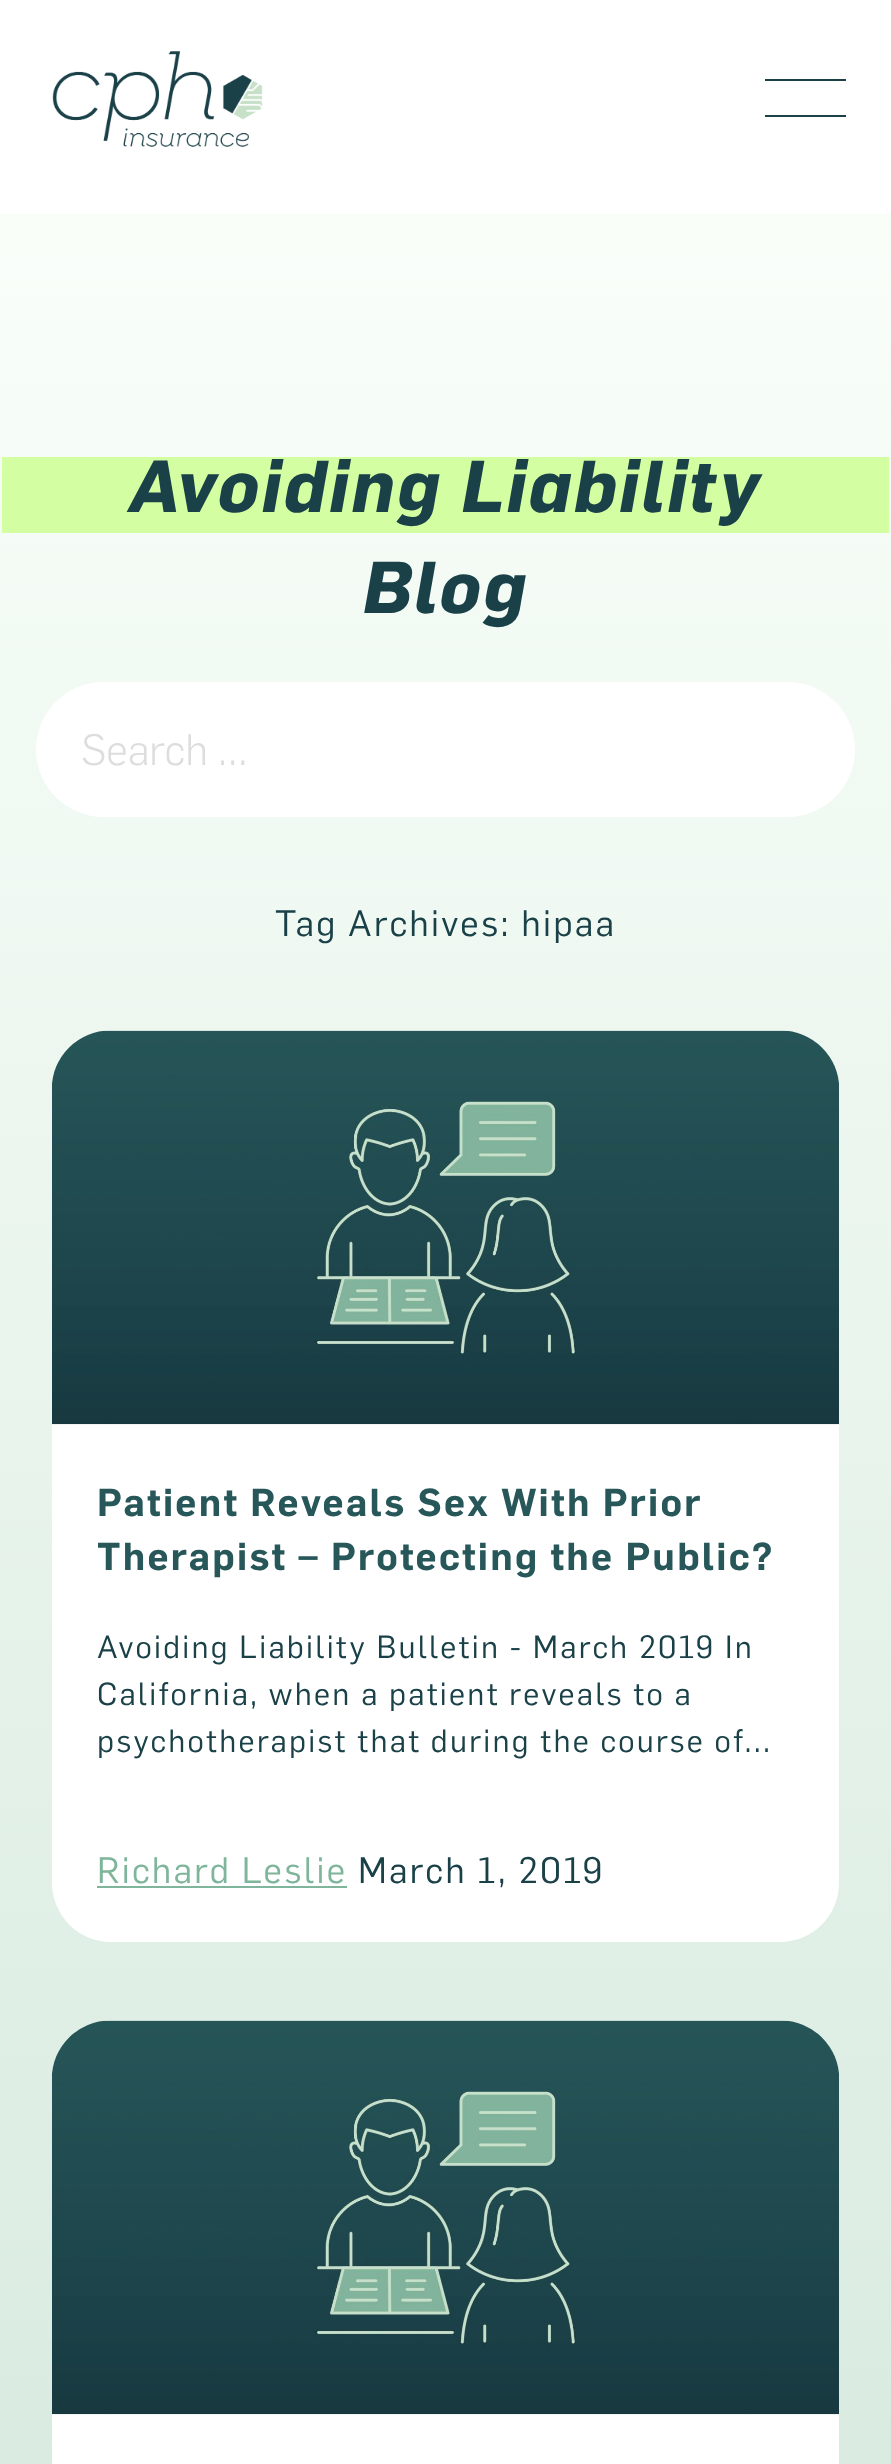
(async () => {
  const canvas = document.querySelector("canvas");
  canvas.width = 891;
  canvas.height = 2464;
  const ctx = canvas.getContext("2d");
  ctx.miterLimit = 4;
  ctx.fontKerning = "normal";
  async function loadImage(src) {
    const img = new Image();
    img.src = src;
    await img.decode();
    return img;
  }
  let gradient;

  ctx.fillStyle = "#ffffff";
  ctx.fillRect(0, 0, 891, 2464);
  ctx.drawImage(await loadImage("img/1.png"), 52, 51, 211, 96);
  ctx.fillStyle = "#1a4048";
  ctx.fillRect(765, 79, 81, 2);
  ctx.fillRect(765, 115, 81, 2);
  gradient = ctx.createLinearGradient(445, 214, 446, 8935);
  gradient.addColorStop(0, "#f9fef9");
  gradient.addColorStop(1, "#7eb59b");
  ctx.fillStyle = gradient;
  ctx.fillRect(0, 214, 891, 2250);
  ctx.fillStyle = "#d3ffa2";
  ctx.fillRect(2, 457, 887, 76);
  ctx.fillStyle = "#ffffff";
  ctx.beginPath();
  ctx.roundRect(36, 682, 819, 135, 67.5);
  ctx.fill();
  ctx.beginPath();
  ctx.roundRect(52, 1031, 787, 911, 59);
  ctx.fill();
  ctx.drawImage(await loadImage("img/2.png"), 52, 1030, 787, 395);
  ctx.fillStyle = "#7eb59b";
  ctx.fillRect(97, 1886, 250, 2);
  ctx.fillStyle = "#ffffff";
  ctx.beginPath();
  ctx.roundRect(52, 2021, 787, 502, 59);
  ctx.fill();
  ctx.drawImage(await loadImage("img/3.png"), 52, 2020, 787, 395);
  ctx.letterSpacing = "2.25px";
  ctx.font = "italic bold 72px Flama";
  ctx.fillStyle = "#1a4048";
  ctx.fillText("Avoiding Liability", 128, 512);
  ctx.fillText("Blog", 362, 613);
  ctx.letterSpacing = "0px";
  ctx.font = "300 43px Flama";
  ctx.fillStyle = "#dddddd";
  ctx.fillText("Search …", 81, 765);
  ctx.letterSpacing = "2.25px";
  ctx.font = "36px Flama";
  ctx.fillStyle = "#1a4048";
  ctx.fillText("Tag Archives: hipaa", 275, 936);
  ctx.font = "600 38.25px Flama";
  ctx.fillStyle = "#275759";
  ctx.fillText("Patient Reveals Sex With Prior", 97, 1516);
  ctx.fillText("Therapist – Protecting the Public?", 97, 1570);
  ctx.font = "31.5px Flama";
  ctx.fillStyle = "#1a4048";
  for (const [text, x, y] of [
    ["Avoiding Liability Bulletin - March 2019 In", 97, 1658],
    ["California, when a patient reveals to a", 97, 1705],
    ["psychotherapist that during the course of...", 97, 1752],
  ]) {
    ctx.fillText(text, x, y);
  }
  ctx.font = "36px Flama";
  ctx.fillStyle = "#7eb59b";
  ctx.fillText("Richard Leslie", 97, 1883);
  ctx.fillStyle = "#1a4048";
  ctx.fillText("March 1, 2019", 358, 1883);
})();
